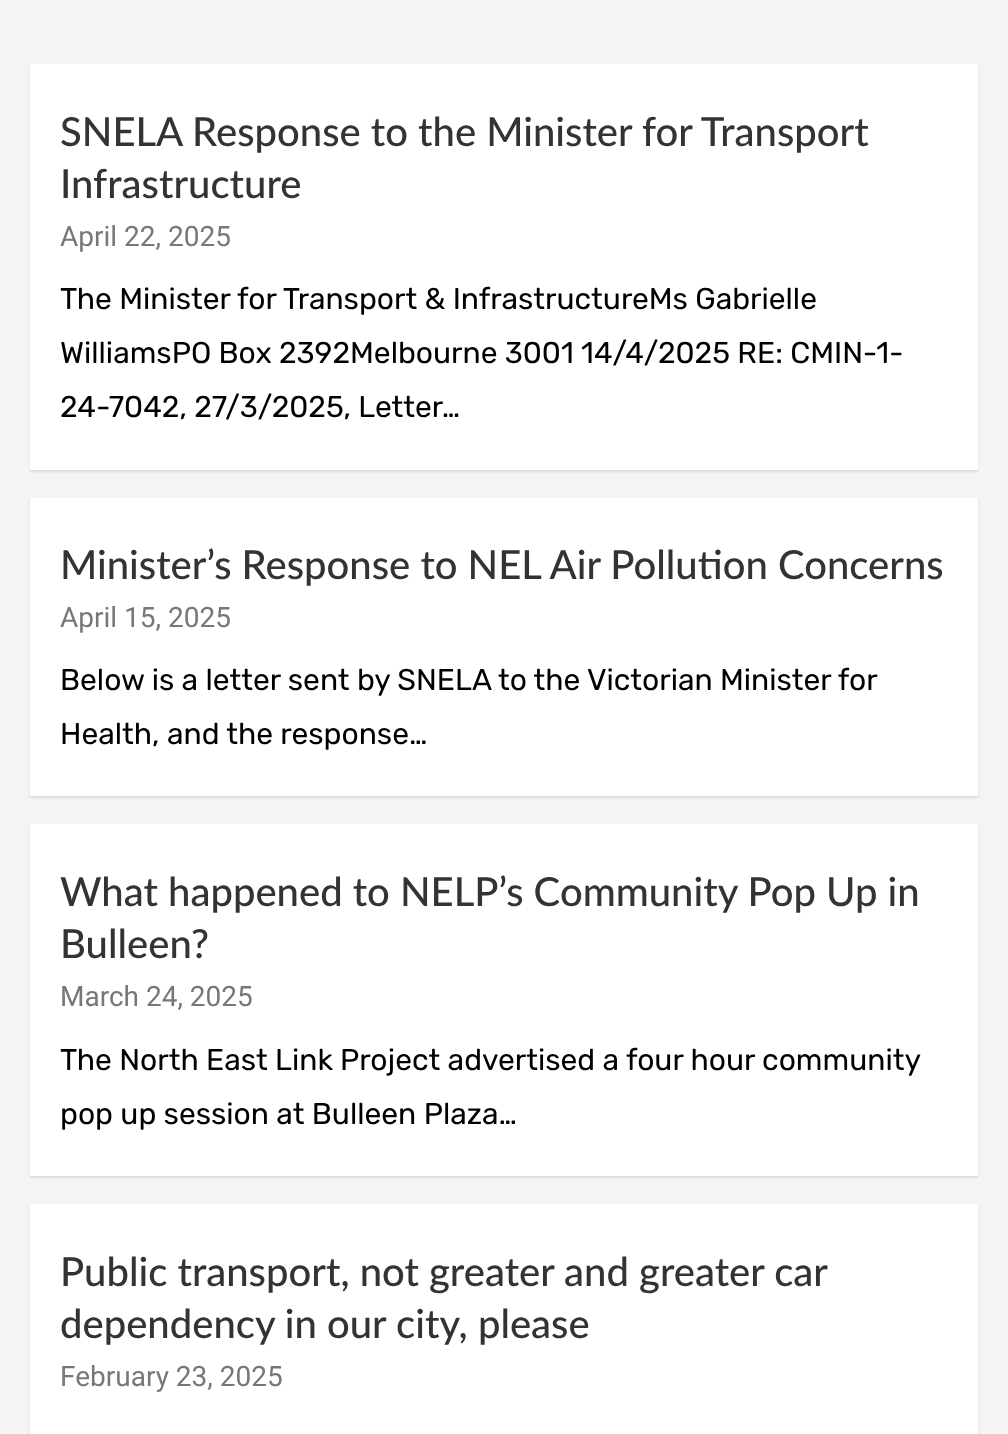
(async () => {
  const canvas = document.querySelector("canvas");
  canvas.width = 1008;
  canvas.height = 1434;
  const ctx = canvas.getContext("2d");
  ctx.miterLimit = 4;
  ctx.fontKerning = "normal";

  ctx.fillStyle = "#f4f4f4";
  ctx.fillRect(0, 0, 1008, 1434);
  ctx.fillStyle = "rgba(0, 0, 0, 0.1)";
  ctx.filter = "blur(1px)";
  ctx.beginPath();
  ctx.rect(30, 66, 948, 406);
  ctx.fill();
  ctx.filter = "none";
  ctx.fillStyle = "#ffffff";
  ctx.fillRect(30, 64, 948, 406);
  ctx.fillStyle = "rgba(0, 0, 0, 0.1)";
  ctx.filter = "blur(1px)";
  ctx.beginPath();
  ctx.rect(30, 500, 948, 298);
  ctx.fill();
  ctx.filter = "none";
  ctx.fillStyle = "#ffffff";
  ctx.fillRect(30, 498, 948, 298);
  ctx.fillStyle = "rgba(0, 0, 0, 0.1)";
  ctx.filter = "blur(1px)";
  ctx.beginPath();
  ctx.rect(30, 826, 948, 352);
  ctx.fill();
  ctx.filter = "none";
  ctx.fillStyle = "#ffffff";
  ctx.fillRect(30, 824, 948, 352);
  ctx.fillStyle = "rgba(0, 0, 0, 0.1)";
  ctx.filter = "blur(1px)";
  ctx.beginPath();
  ctx.rect(30, 1206, 948, 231);
  ctx.fill();
  ctx.filter = "none";
  ctx.fillStyle = "#ffffff";
  ctx.fillRect(30, 1204, 948, 230);
  ctx.font = "500 40px Lato";
  ctx.fillStyle = "#333333";
  ctx.fillText("SNELA Response to the Minister for Transport", 60, 146);
  ctx.fillText("Infrastructure", 60, 198);
  ctx.font = "28px Roboto";
  ctx.fillStyle = "#777777";
  ctx.fillText("April 22, 2025", 60, 246);
  ctx.font = "30px Rubik";
  ctx.fillStyle = "#000000";
  for (const [text, x, y] of [
    ["The Minister for Transport & InfrastructureMs Gabrielle", 60, 309],
    ["WilliamsPO Box 2392Melbourne 3001 14/4/2025 RE: CMIN-1-", 60, 363],
    ["24-7042, 27/3/2025, Letter…", 60, 417],
  ]) {
    ctx.fillText(text, x, y);
  }
  ctx.font = "500 40px Lato";
  ctx.fillStyle = "#333333";
  ctx.fillText("Minister’s Response to NEL Air Pollution Concerns", 60, 579);
  ctx.font = "28px Roboto";
  ctx.fillStyle = "#777777";
  ctx.fillText("April 15, 2025", 60, 627);
  ctx.font = "30px Rubik";
  ctx.fillStyle = "#000000";
  ctx.fillText("Below is a letter sent by SNELA to the Victorian Minister for", 60, 690);
  ctx.fillText("Health, and the response…", 60, 744);
  ctx.font = "500 40px Lato";
  ctx.fillStyle = "#333333";
  ctx.fillText("What happened to NELP’s Community Pop Up in", 60, 906);
  ctx.fillText("Bulleen?", 60, 958);
  ctx.font = "28px Roboto";
  ctx.fillStyle = "#777777";
  ctx.fillText("March 24, 2025", 60, 1006);
  ctx.font = "30px Rubik";
  ctx.fillStyle = "#000000";
  ctx.fillText("The North East Link Project advertised a four hour community", 60, 1070);
  ctx.fillText("pop up session at Bulleen Plaza…", 60, 1124);
  ctx.font = "500 40px Lato";
  ctx.fillStyle = "#333333";
  ctx.fillText("Public transport, not greater and greater car", 60, 1286);
  ctx.fillText("dependency in our city, please", 60, 1338);
  ctx.font = "28px Roboto";
  ctx.fillStyle = "#777777";
  ctx.fillText("February 23, 2025", 60, 1386);
})();
